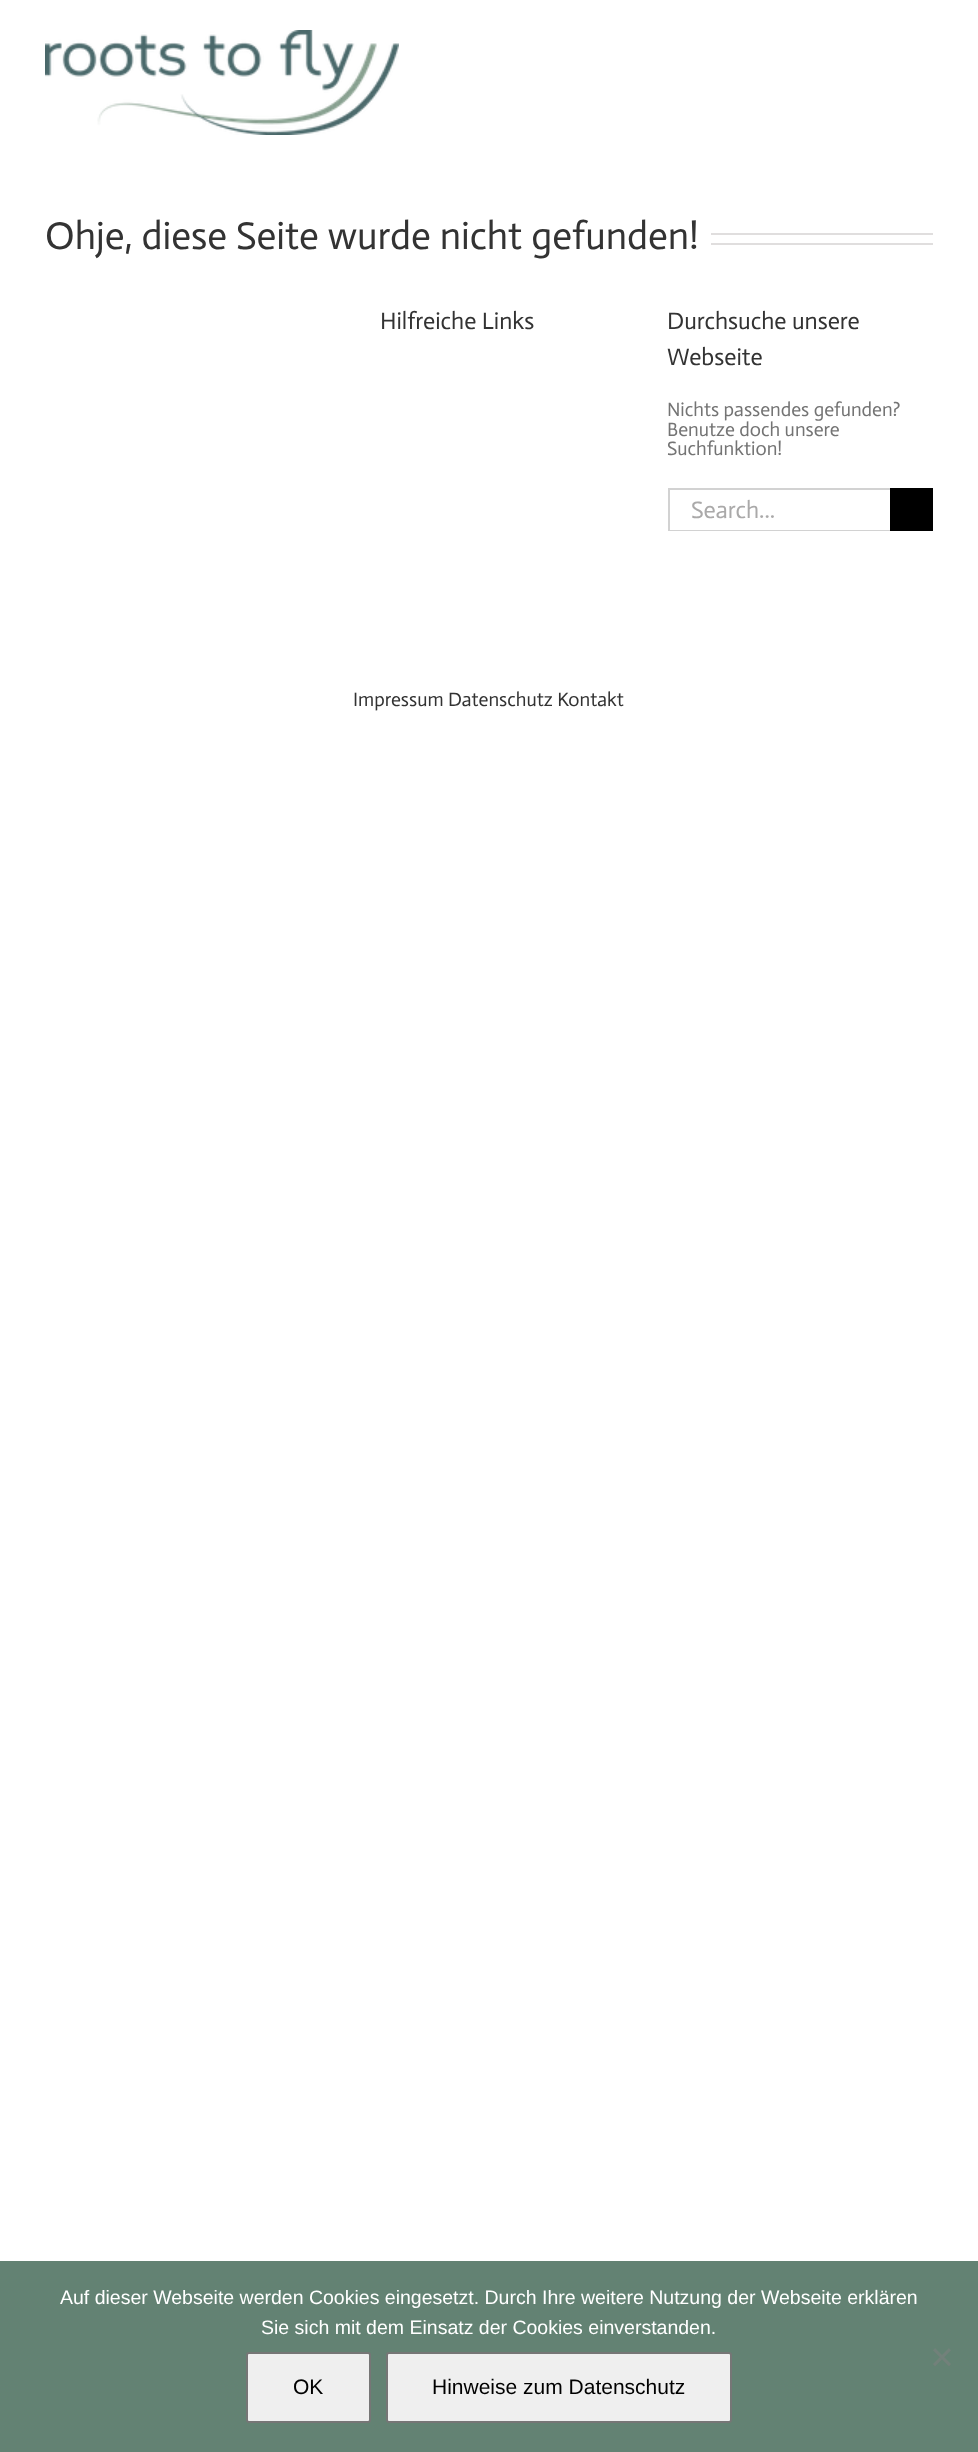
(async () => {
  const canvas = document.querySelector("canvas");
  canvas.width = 978;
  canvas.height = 2452;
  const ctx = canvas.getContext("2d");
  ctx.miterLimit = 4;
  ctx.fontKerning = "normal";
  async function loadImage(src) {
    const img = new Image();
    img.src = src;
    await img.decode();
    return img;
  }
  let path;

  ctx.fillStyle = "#ffffff";
  ctx.fillRect(0, 0, 978, 2452);
  ctx.drawImage(await loadImage("img/1.png"), 45, 30, 354, 105);
  for (const [x, y, w, h, color] of [
    [711, 233, 222, 2, "#e0dede"],
    [711, 243, 222, 2, "#e0dede"],
    [668, 488, 222, 2, "#d2d2d2"],
    [668, 530, 222, 1, "#d2d2d2"],
    [668, 488, 2, 43, "#d2d2d2"],
    [890, 488, 43, 43, "#000000"],
    [0, 2261, 978, 191, "#638273"],
  ]) {
    ctx.fillStyle = color;
    ctx.fillRect(x, y, w, h);
  }
  ctx.fillStyle = "#72817a";
  path = new Path2D("M949 2348L951 2350.5L935 2366.5L933 2364Z");
  ctx.fill(path);
  path = new Path2D("M933 2350.5L935 2348L951 2364L949 2366.5Z");
  ctx.fill(path);
  ctx.fillStyle = "#efefef";
  ctx.beginPath();
  ctx.roundRect(247, 2353, 123, 69, 2);
  ctx.fill();
  ctx.strokeStyle = "#767676";
  ctx.lineWidth = 2;
  ctx.stroke();
  ctx.beginPath();
  ctx.roundRect(387, 2353, 344, 69, 2);
  ctx.fill();
  ctx.stroke();
  ctx.font = "39px Actor";
  ctx.fillStyle = "#333333";
  ctx.fillText("Ohje, diese Seite wurde nicht gefunden!", 45, 249);
  ctx.font = "24px Actor";
  for (const [text, x, y] of [
    ["Hilfreiche Links", 380, 329],
    ["Durchsuche unsere", 667, 329],
    ["Webseite", 667, 365],
  ]) {
    ctx.fillText(text, x, y);
  }
  ctx.font = "19.5px Actor";
  ctx.fillStyle = "#747474";
  for (const [text, x, y] of [
    ["Nichts passendes gefunden?", 667, 416],
    ["Benutze doch unsere", 667, 436],
    ["Suchfunktion!", 667, 455],
  ]) {
    ctx.fillText(text, x, y);
  }
  ctx.font = "24px Actor";
  ctx.fillStyle = "#aaa9a9";
  ctx.fillText("Search...", 691, 518);
  ctx.font = "19.5px Actor";
  ctx.fillStyle = "#333333";
  ctx.fillText("Impressum Datenschutz Kontakt", 353, 706);
  ctx.font = "19.5px Liberation Sans";
  ctx.fillStyle = "#ffffff";
  ctx.fillText("Auf dieser Webseite werden Cookies eingesetzt. Durch Ihre weitere Nutzung der Webseite erklären", 60, 2304);
  ctx.fillText("Sie sich mit dem Einsatz der Cookies einverstanden.", 261, 2334);
  ctx.font = "21px Liberation Sans";
  ctx.fillStyle = "#000000";
  ctx.fillText("OK", 293, 2394);
  ctx.fillText("Hinweise zum Datenschutz", 432, 2394);
})();
